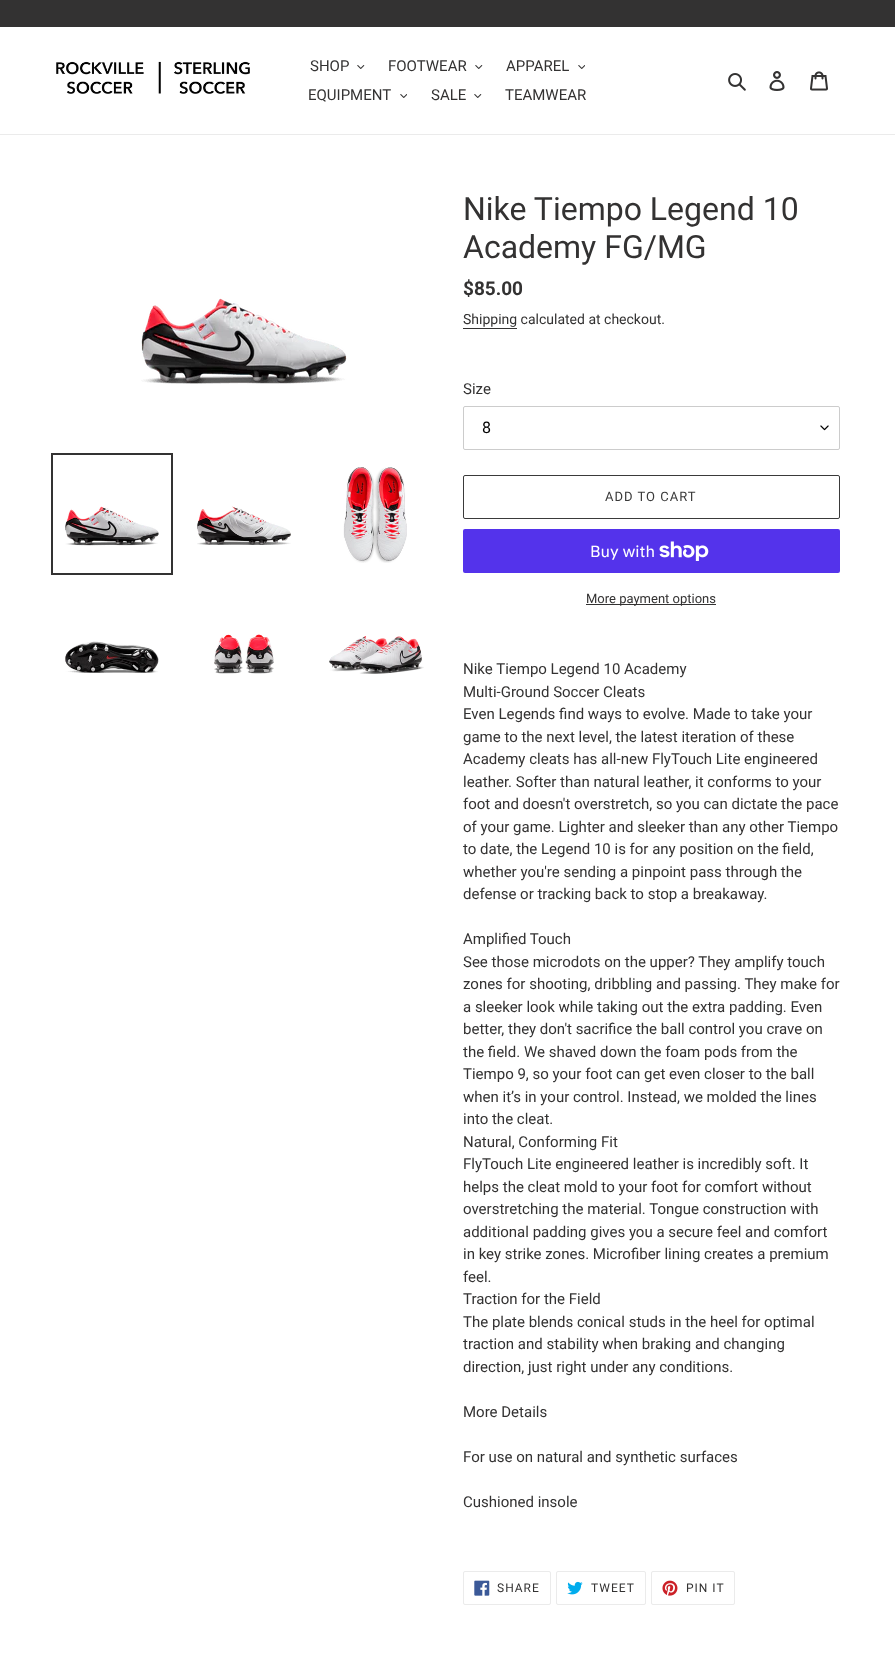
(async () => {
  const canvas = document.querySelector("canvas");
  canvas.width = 895;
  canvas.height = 1668;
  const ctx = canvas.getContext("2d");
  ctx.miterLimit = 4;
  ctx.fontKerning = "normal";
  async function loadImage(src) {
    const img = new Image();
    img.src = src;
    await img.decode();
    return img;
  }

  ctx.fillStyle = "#ffffff";
  ctx.fillRect(0, 0, 895, 1668);
  ctx.fillStyle = "#333232";
  ctx.fillRect(0, 0, 895, 27);
  ctx.fillStyle = "#ebebeb";
  ctx.fillRect(0, 134, 895, 1);
  ctx.drawImage(await loadImage("img/1.png"), 56, 61, 194, 33);
  ctx.drawImage(await loadImage("img/2.png"), 357, 65, 8, 4);
  ctx.drawImage(await loadImage("img/2.png"), 475, 65, 8, 4);
  ctx.drawImage(await loadImage("img/3.png"), 578, 65, 7, 4);
  ctx.drawImage(await loadImage("img/3.png"), 400, 94, 7, 4);
  ctx.drawImage(await loadImage("img/2.png"), 474, 94, 8, 4);
  ctx.drawImage(await loadImage("img/4.png"), 728, 73, 18, 18);
  ctx.drawImage(await loadImage("img/5.png"), 769, 71, 16, 20);
  ctx.drawImage(await loadImage("img/6.png"), 810, 71, 18, 20);
  ctx.drawImage(await loadImage("img/7.png"), 141, 298, 206, 86);
  ctx.strokeStyle = "#333232";
  ctx.lineWidth = 2;
  ctx.strokeRect(52, 454, 120, 120);
  ctx.drawImage(await loadImage("img/8.png"), 65, 506, 94, 40);
  ctx.drawImage(await loadImage("img/9.png"), 197, 506, 94, 39);
  ctx.drawImage(await loadImage("img/10.png"), 343, 467, 64, 96);
  ctx.drawImage(await loadImage("img/11.png"), 65, 641, 94, 32);
  ctx.drawImage(await loadImage("img/12.png"), 214, 634, 60, 40);
  ctx.drawImage(await loadImage("img/13.png"), 329, 636, 95, 38);
  ctx.fillStyle = "#333232";
  ctx.fillRect(463, 328, 54, 1);
  ctx.drawImage(await loadImage("img/14.png"), 820, 425, 9, 6);
  ctx.beginPath();
  ctx.roundRect(463.5, 406.5, 376, 43, 1.5);
  ctx.strokeStyle = "#cccccc";
  ctx.lineWidth = 1;
  ctx.stroke();
  ctx.beginPath();
  ctx.roundRect(463.5, 475.5, 376, 43, 1.5);
  ctx.strokeStyle = "#3a3a3a";
  ctx.stroke();
  ctx.fillStyle = "#5433eb";
  ctx.beginPath();
  ctx.roundRect(463, 529, 377, 44, 2);
  ctx.fill();
  ctx.drawImage(await loadImage("img/15.png"), 659, 541, 50, 20);
  ctx.fillStyle = "#333232";
  ctx.fillRect(586, 604, 130, 1);
  ctx.beginPath();
  ctx.roundRect(463.5, 1571.5, 87, 33, 1.5);
  ctx.strokeStyle = "#ebebeb";
  ctx.stroke();
  ctx.drawImage(await loadImage("img/16.png"), 474, 1580, 16, 16);
  ctx.beginPath();
  ctx.roundRect(556.5, 1571.5, 89, 33, 1.5);
  ctx.stroke();
  ctx.drawImage(await loadImage("img/17.png"), 567, 1581, 16, 14);
  ctx.beginPath();
  ctx.roundRect(651.5, 1571.5, 83, 33, 1.5);
  ctx.stroke();
  ctx.drawImage(await loadImage("img/18.png"), 662, 1580, 16, 16);
  ctx.font = "15px Roboto";
  for (const [text, x, y] of [
    ["SHOP", 310, 71],
    ["FOOTWEAR", 388, 71],
    ["APPAREL", 506, 71],
    ["EQUIPMENT", 308, 100],
    ["SALE", 431, 100],
    ["TEAMWEAR", 505, 100],
  ]) {
    ctx.fillText(text, x, y);
  }
  ctx.font = "32px Roboto";
  ctx.fillText("Nike Tiempo Legend 10", 463, 220);
  ctx.fillText("Academy FG/MG", 463, 258);
  ctx.font = "bold 19px Roboto";
  ctx.fillText("$85.00", 463, 295);
  ctx.font = "14px Roboto";
  ctx.fillText("Shipping calculated at checkout.", 463, 324);
  ctx.font = "15px Roboto";
  ctx.fillText("Size", 463, 394);
  ctx.font = "16px Roboto";
  ctx.fillStyle = "#000000";
  ctx.fillText("8", 482, 433);
  ctx.letterSpacing = "1px";
  ctx.font = "13px Roboto";
  ctx.fillStyle = "#3a3a3a";
  ctx.fillText("ADD TO CART", 605, 501);
  ctx.letterSpacing = "0px";
  ctx.font = "16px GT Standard";
  ctx.fillStyle = "#ffffff";
  ctx.fillText("Buy with", 590, 557);
  ctx.font = "13px Roboto";
  ctx.fillStyle = "#333232";
  ctx.fillText("More payment options", 586, 603);
  ctx.font = "15px Roboto";
  for (const [text, x, y] of [
    ["Nike Tiempo Legend 10 Academy", 463, 674],
    ["Multi-Ground Soccer Cleats", 463, 697],
    ["Even Legends find ways to evolve. Made to take your", 463, 719],
    ["game to the next level, the latest iteration of these", 463, 742],
    ["Academy cleats has all-new FlyTouch Lite engineered", 463, 764],
    ["leather. Softer than natural leather, it conforms to your", 463, 787],
    ["foot and doesn't overstretch, so you can dictate the pace", 463, 809],
    ["of your game. Lighter and sleeker than any other Tiempo", 463, 832],
    ["to date, the Legend 10 is for any position on the field,", 463, 854],
    ["whether you're sending a pinpoint pass through the", 463, 877],
    ["defense or tracking back to stop a breakaway.", 463, 899],
    ["Amplified Touch", 463, 944],
    ["See those microdots on the upper? They amplify touch", 463, 967],
    ["zones for shooting, dribbling and passing. They make for", 463, 989],
    ["a sleeker look while taking out the extra padding. Even", 463, 1012],
    ["better, they don't sacrifice the ball control you crave on", 463, 1034],
    ["the field. We shaved down the foam pods from the", 463, 1057],
    ["Tiempo 9, so your foot can get even closer to the ball", 463, 1079],
    ["when it’s in your control. Instead, we molded the lines", 463, 1102],
    ["into the cleat.", 463, 1124],
    ["Natural, Conforming Fit", 463, 1147],
    ["FlyTouch Lite engineered leather is incredibly soft. It", 463, 1169],
    ["helps the cleat mold to your foot for comfort without", 463, 1192],
    ["overstretching the material. Tongue construction with", 463, 1214],
    ["additional padding gives you a secure feel and comfort", 463, 1237],
    ["in key strike zones. Microfiber lining creates a premium", 463, 1259],
    ["feel.", 463, 1282],
    ["Traction for the Field", 463, 1304],
    ["The plate blends conical studs in the heel for optimal", 463, 1327],
    ["traction and stability when braking and changing", 463, 1349],
    ["direction, just right under any conditions.", 463, 1372],
    ["More Details", 463, 1417],
    ["For use on natural and synthetic surfaces", 463, 1462],
    ["Cushioned insole", 463, 1507],
  ]) {
    ctx.fillText(text, x, y);
  }
  ctx.letterSpacing = "1px";
  ctx.font = "12px Roboto";
  for (const [text, x, y] of [
    ["SHARE", 497, 1592],
    ["TWEET", 591, 1592],
    ["PIN IT", 686, 1592],
  ]) {
    ctx.fillText(text, x, y);
  }
})();
